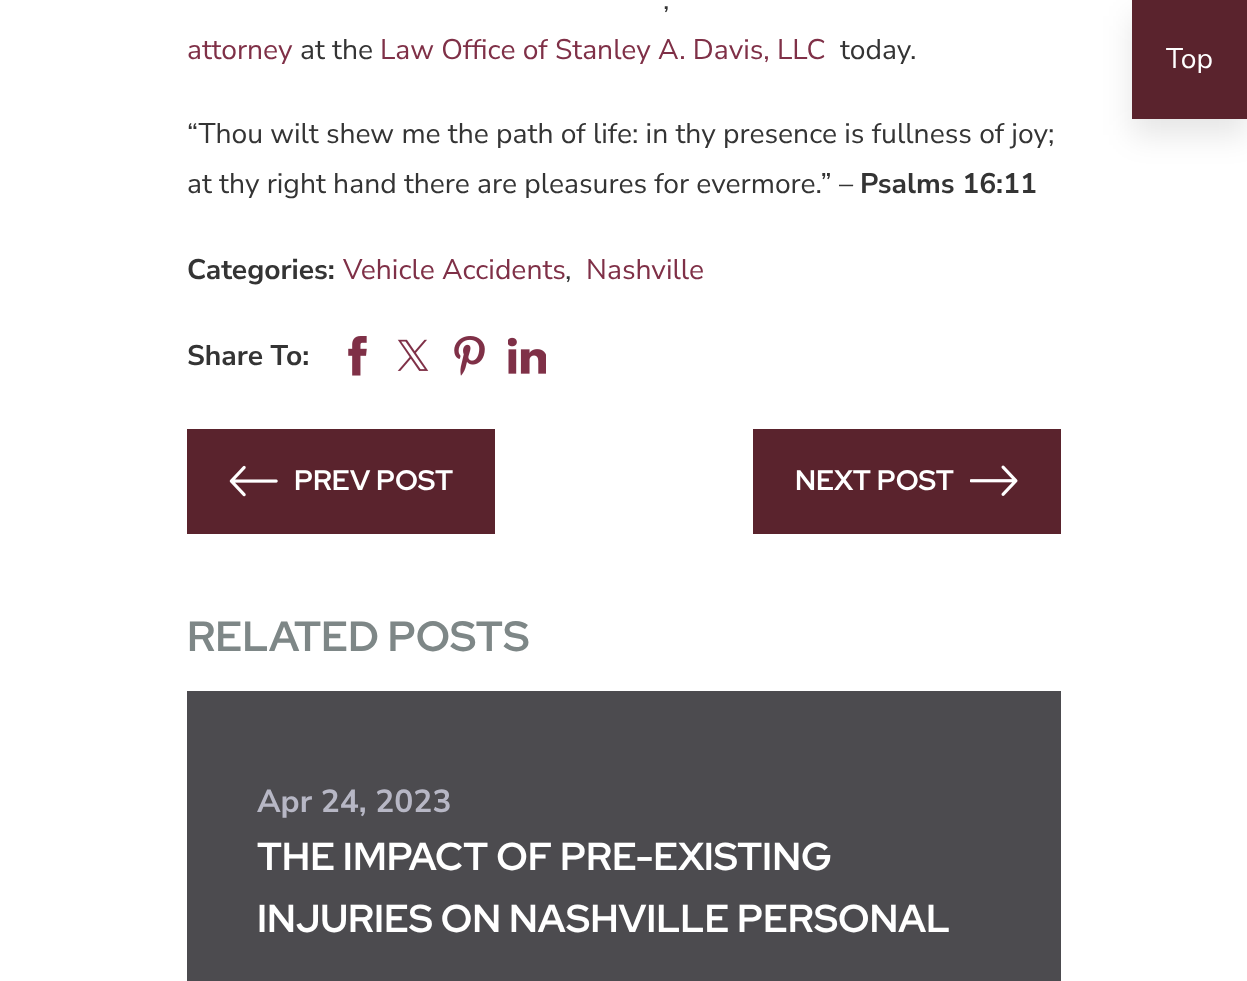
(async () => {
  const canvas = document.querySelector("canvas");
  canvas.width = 1247;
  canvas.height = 981;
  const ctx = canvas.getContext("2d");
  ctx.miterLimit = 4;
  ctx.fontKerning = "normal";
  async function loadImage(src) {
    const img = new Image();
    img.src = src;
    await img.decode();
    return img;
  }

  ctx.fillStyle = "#ffffff";
  ctx.fillRect(0, 0, 1247, 981);
  ctx.drawImage(await loadImage("img/1.png"), 348, 336, 19, 40);
  ctx.drawImage(await loadImage("img/2.png"), 397, 339, 32, 32);
  ctx.drawImage(await loadImage("img/3.png"), 454, 336, 31, 40);
  ctx.drawImage(await loadImage("img/4.png"), 508, 337, 38, 37);
  ctx.fillStyle = "#5a232d";
  ctx.fillRect(187, 429, 308, 105);
  ctx.drawImage(await loadImage("img/5.png"), 229, 465, 49, 32);
  ctx.fillRect(753, 429, 308, 105);
  ctx.drawImage(await loadImage("img/6.png"), 970, 465, 48, 31);
  ctx.fillStyle = "#4c4b4f";
  ctx.fillRect(187, 691, 874, 290);
  ctx.fillStyle = "rgba(0, 0, 0, 0.1)";
  ctx.filter = "blur(15.5px)";
  ctx.beginPath();
  ctx.rect(1132, 16, 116, 119);
  ctx.fill();
  ctx.filter = "none";
  ctx.fillStyle = "#5a232d";
  ctx.fillRect(1132, 0, 115, 119);
  ctx.font = "28.25px Nunito Sans";
  ctx.fillStyle = "#343434";
  ctx.fillText(",", 663, 9);
  ctx.fillStyle = "#7f3047";
  ctx.fillText("attorney", 187, 59);
  ctx.fillStyle = "#343434";
  ctx.fillText("at the", 300, 59);
  ctx.fillStyle = "#7f3047";
  ctx.fillText("Law Office of Stanley A. Davis, LLC", 380, 59);
  ctx.fillStyle = "#343434";
  for (const [text, x, y] of [
    ["today.", 840, 59],
    ["“Thou wilt shew me the path of life: in thy presence is fullness of joy;", 187, 143],
    ["at thy right hand there are pleasures for evermore.” –", 187, 193],
  ]) {
    ctx.fillText(text, x, y);
  }
  ctx.font = "bold 28.25px Nunito Sans";
  ctx.fillText("Psalms 16:11", 860, 193);
  ctx.fillText("Categories:", 187, 279);
  ctx.font = "28.25px Nunito Sans";
  ctx.fillStyle = "#7f3047";
  ctx.fillText("Vehicle Accidents", 343, 279);
  ctx.fillStyle = "#343434";
  ctx.fillText(",", 565, 279);
  ctx.fillStyle = "#7f3047";
  ctx.fillText("Nashville", 586, 279);
  ctx.font = "bold 28.25px Nunito Sans";
  ctx.fillStyle = "#343434";
  ctx.fillText("Share To:", 187, 365);
  ctx.font = "bold 28.25px Red Hat Display";
  ctx.fillStyle = "#ffffff";
  ctx.fillText("PREV POST", 294, 490);
  ctx.fillText("NEXT POST", 795, 490);
  ctx.font = "bold 42.25px Red Hat Display";
  ctx.fillStyle = "#7e8787";
  ctx.fillText("RELATED POSTS", 187, 651);
  ctx.font = "bold 31.75px Nunito Sans";
  ctx.fillStyle = "#b7b7c5";
  ctx.fillText("Apr 24, 2023", 257, 812);
  ctx.font = "bold 38.8px Red Hat Display";
  ctx.fillStyle = "#ffffff";
  ctx.fillText("THE IMPACT OF PRE-EXISTING", 257, 870);
  ctx.fillText("INJURIES ON NASHVILLE PERSONAL", 257, 932);
  ctx.font = "28.25px Nunito Sans";
  ctx.fillText("Top", 1166, 68);
})();
